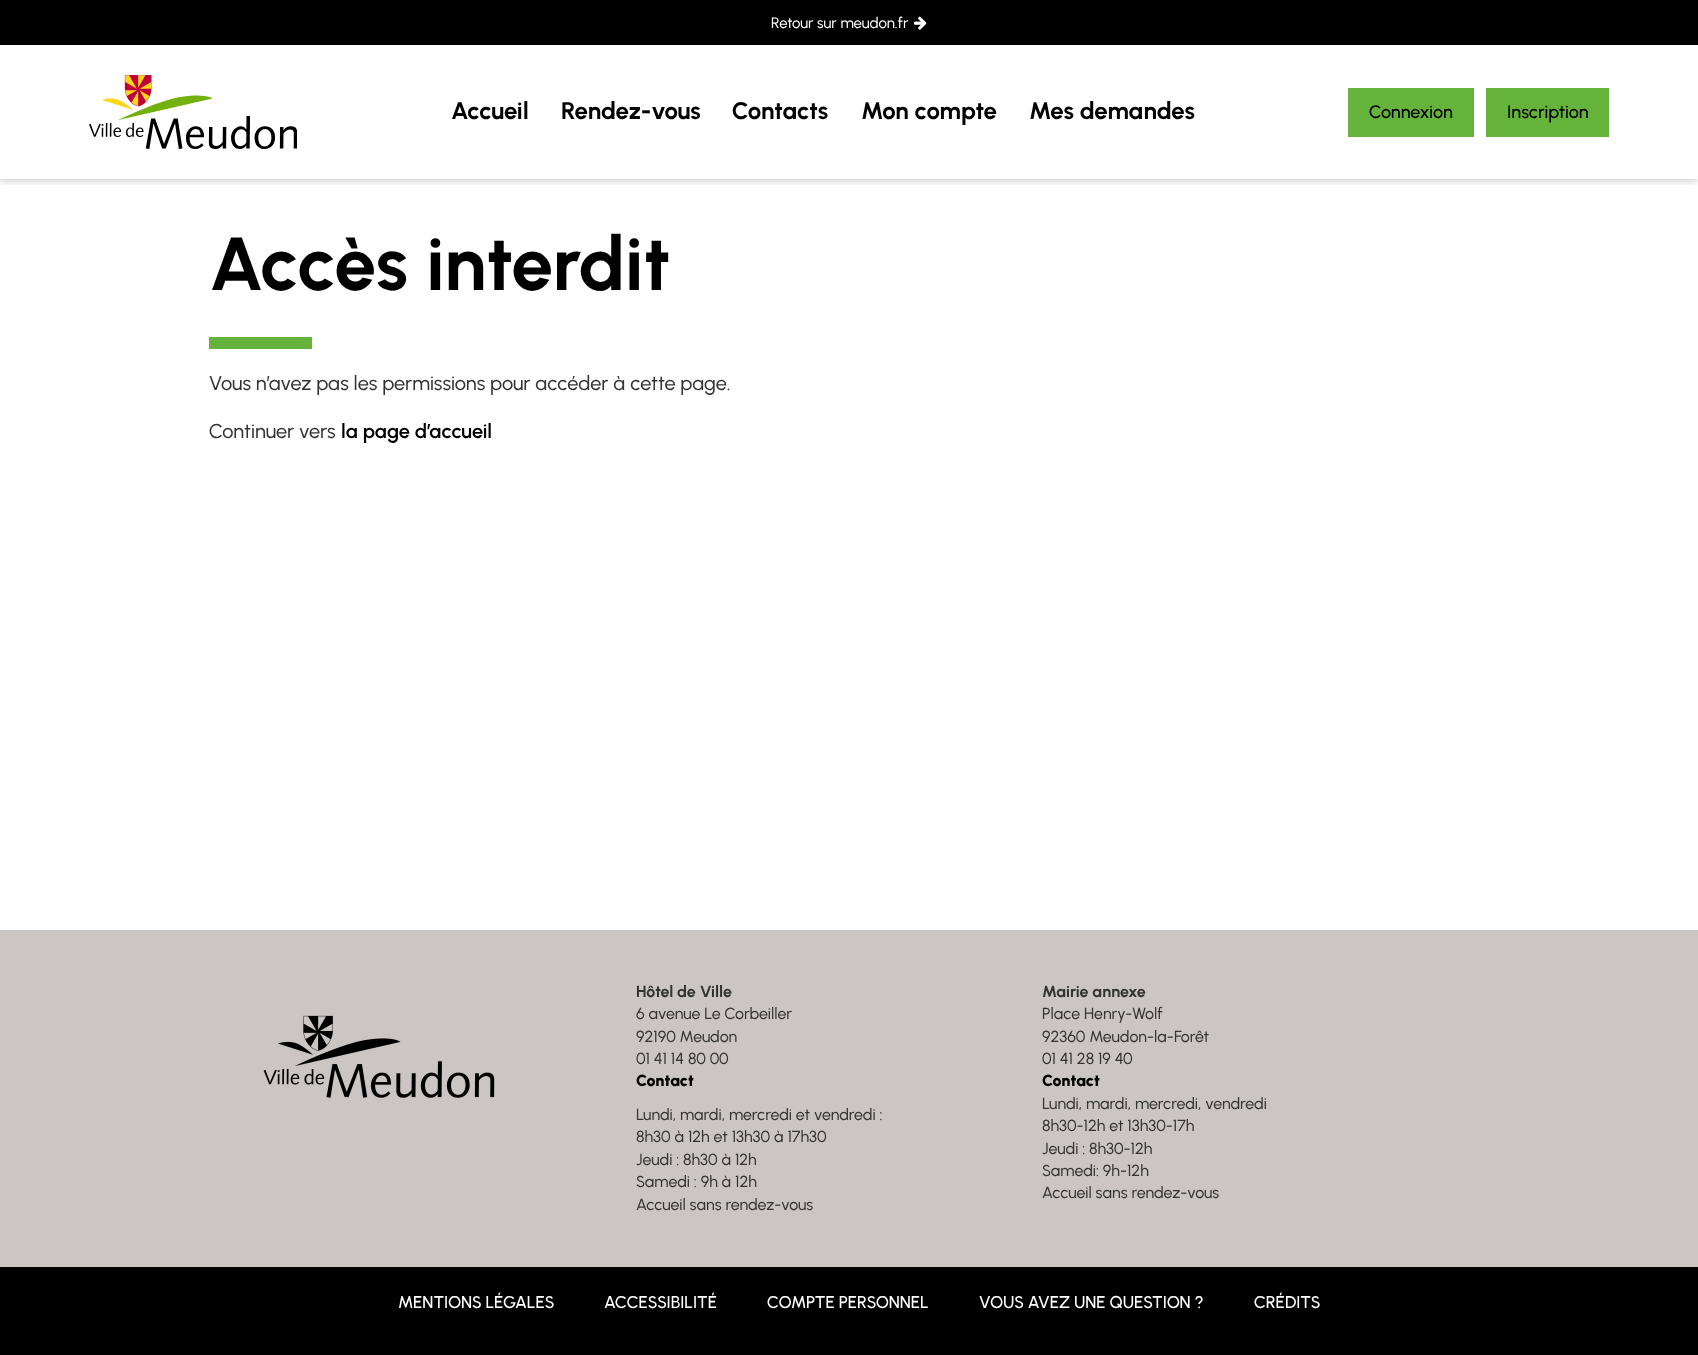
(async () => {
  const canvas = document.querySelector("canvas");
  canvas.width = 1698;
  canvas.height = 1355;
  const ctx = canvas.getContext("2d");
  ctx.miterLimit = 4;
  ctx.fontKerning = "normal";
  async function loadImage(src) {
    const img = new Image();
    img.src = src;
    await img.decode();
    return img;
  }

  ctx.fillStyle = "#ffffff";
  ctx.fillRect(0, 0, 1698, 1355);
  ctx.save();
  ctx.beginPath();
  ctx.rect(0, 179, 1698, 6);
  ctx.clip();
  ctx.fillStyle = "rgba(0, 0, 0, 0.16)";
  ctx.filter = "blur(3px)";
  ctx.beginPath();
  ctx.rect(0, 3, 1698, 179);
  ctx.fill();
  ctx.filter = "none";
  ctx.restore();
  ctx.fillStyle = "#000000";
  ctx.fillRect(0, 0, 1698, 45);
  ctx.drawImage(await loadImage("img/1.png"), 914, 16, 13, 14);
  ctx.drawImage(await loadImage("img/2.png"), 89, 75, 208, 74);
  for (const [x, y, w, h, color] of [
    [1348, 88, 126, 49, "#65b33a"],
    [1486, 88, 123, 49, "#65b33a"],
    [209, 337, 103, 12, "#65b33a"],
    [0, 930, 1698, 337, "#cbc5c3"],
  ]) {
    ctx.fillStyle = color;
    ctx.fillRect(x, y, w, h);
  }
  ctx.drawImage(await loadImage("img/3.png"), 263, 1015, 232, 83);
  ctx.fillStyle = "#000000";
  ctx.fillRect(0, 1267, 1698, 88);
  ctx.font = "15px Urbanist";
  ctx.fillStyle = "#ffffff";
  ctx.fillText("Retour sur meudon.fr", 771, 28);
  ctx.font = "bold 24px Urbanist";
  ctx.fillStyle = "#000000";
  for (const [text, x, y] of [
    ["Accueil", 451, 119],
    ["Rendez-vous", 561, 119],
    ["Contacts", 732, 119],
    ["Mon compte", 861, 119],
    ["Mes demandes", 1029, 119],
  ]) {
    ctx.fillText(text, x, y);
  }
  ctx.font = "500 18px Urbanist";
  ctx.fillText("Connexion", 1369, 118);
  ctx.fillText("Inscription", 1507, 118);
  ctx.font = "bold 75px Urbanist";
  ctx.fillText("Accès interdit", 209, 290);
  ctx.font = "20px Urbanist";
  ctx.fillStyle = "#333333";
  ctx.fillText("Vous n’avez pas les permissions pour accéder à cette page.", 209, 390);
  ctx.fillText("Continuer vers", 209, 438);
  ctx.font = "600 20px Urbanist";
  ctx.fillStyle = "#000000";
  ctx.fillText("la page d’accueil", 341, 438);
  ctx.font = "bold 16px Urbanist";
  ctx.fillStyle = "#333333";
  ctx.fillText("Hôtel de Ville", 636, 997);
  ctx.font = "16px Urbanist";
  for (const [text, x, y] of [
    ["6 avenue Le Corbeiller", 636, 1019],
    ["92190 Meudon", 636, 1042],
    ["01 41 14 80 00", 636, 1064],
  ]) {
    ctx.fillText(text, x, y);
  }
  ctx.font = "900 16px Urbanist";
  ctx.fillStyle = "#000000";
  ctx.fillText("Contact", 636, 1086);
  ctx.font = "16px Urbanist";
  ctx.fillStyle = "#333333";
  for (const [text, x, y] of [
    ["Lundi, mardi, mercredi et vendredi :", 636, 1120],
    ["8h30 à 12h et 13h30 à 17h30", 636, 1142],
    ["Jeudi : 8h30 à 12h", 636, 1165],
    ["Samedi : 9h à 12h", 636, 1187],
    ["Accueil sans rendez-vous", 636, 1210],
  ]) {
    ctx.fillText(text, x, y);
  }
  ctx.font = "bold 16px Urbanist";
  ctx.fillText("Mairie annexe", 1042, 997);
  ctx.font = "16px Urbanist";
  for (const [text, x, y] of [
    ["Place Henry-Wolf", 1042, 1019],
    ["92360 Meudon-la-Forêt", 1042, 1042],
    ["01 41 28 19 40", 1042, 1064],
  ]) {
    ctx.fillText(text, x, y);
  }
  ctx.font = "900 16px Urbanist";
  ctx.fillStyle = "#000000";
  ctx.fillText("Contact", 1042, 1086);
  ctx.font = "16px Urbanist";
  ctx.fillStyle = "#333333";
  for (const [text, x, y] of [
    ["Lundi, mardi, mercredi, vendredi", 1042, 1109],
    ["8h30-12h et 13h30-17h", 1042, 1131],
    ["Jeudi : 8h30-12h", 1042, 1154],
    ["Samedi: 9h-12h", 1042, 1176],
    ["Accueil sans rendez-vous", 1042, 1198],
  ]) {
    ctx.fillText(text, x, y);
  }
  ctx.font = "500 17px Urbanist";
  ctx.fillStyle = "#ffffff";
  for (const [text, x, y] of [
    ["MENTIONS LÉGALES", 398, 1308],
    ["ACCESSIBILITÉ", 604, 1308],
    ["COMPTE PERSONNEL", 767, 1308],
    ["VOUS AVEZ UNE QUESTION ?", 979, 1308],
    ["CRÉDITS", 1254, 1308],
  ]) {
    ctx.fillText(text, x, y);
  }
})();
